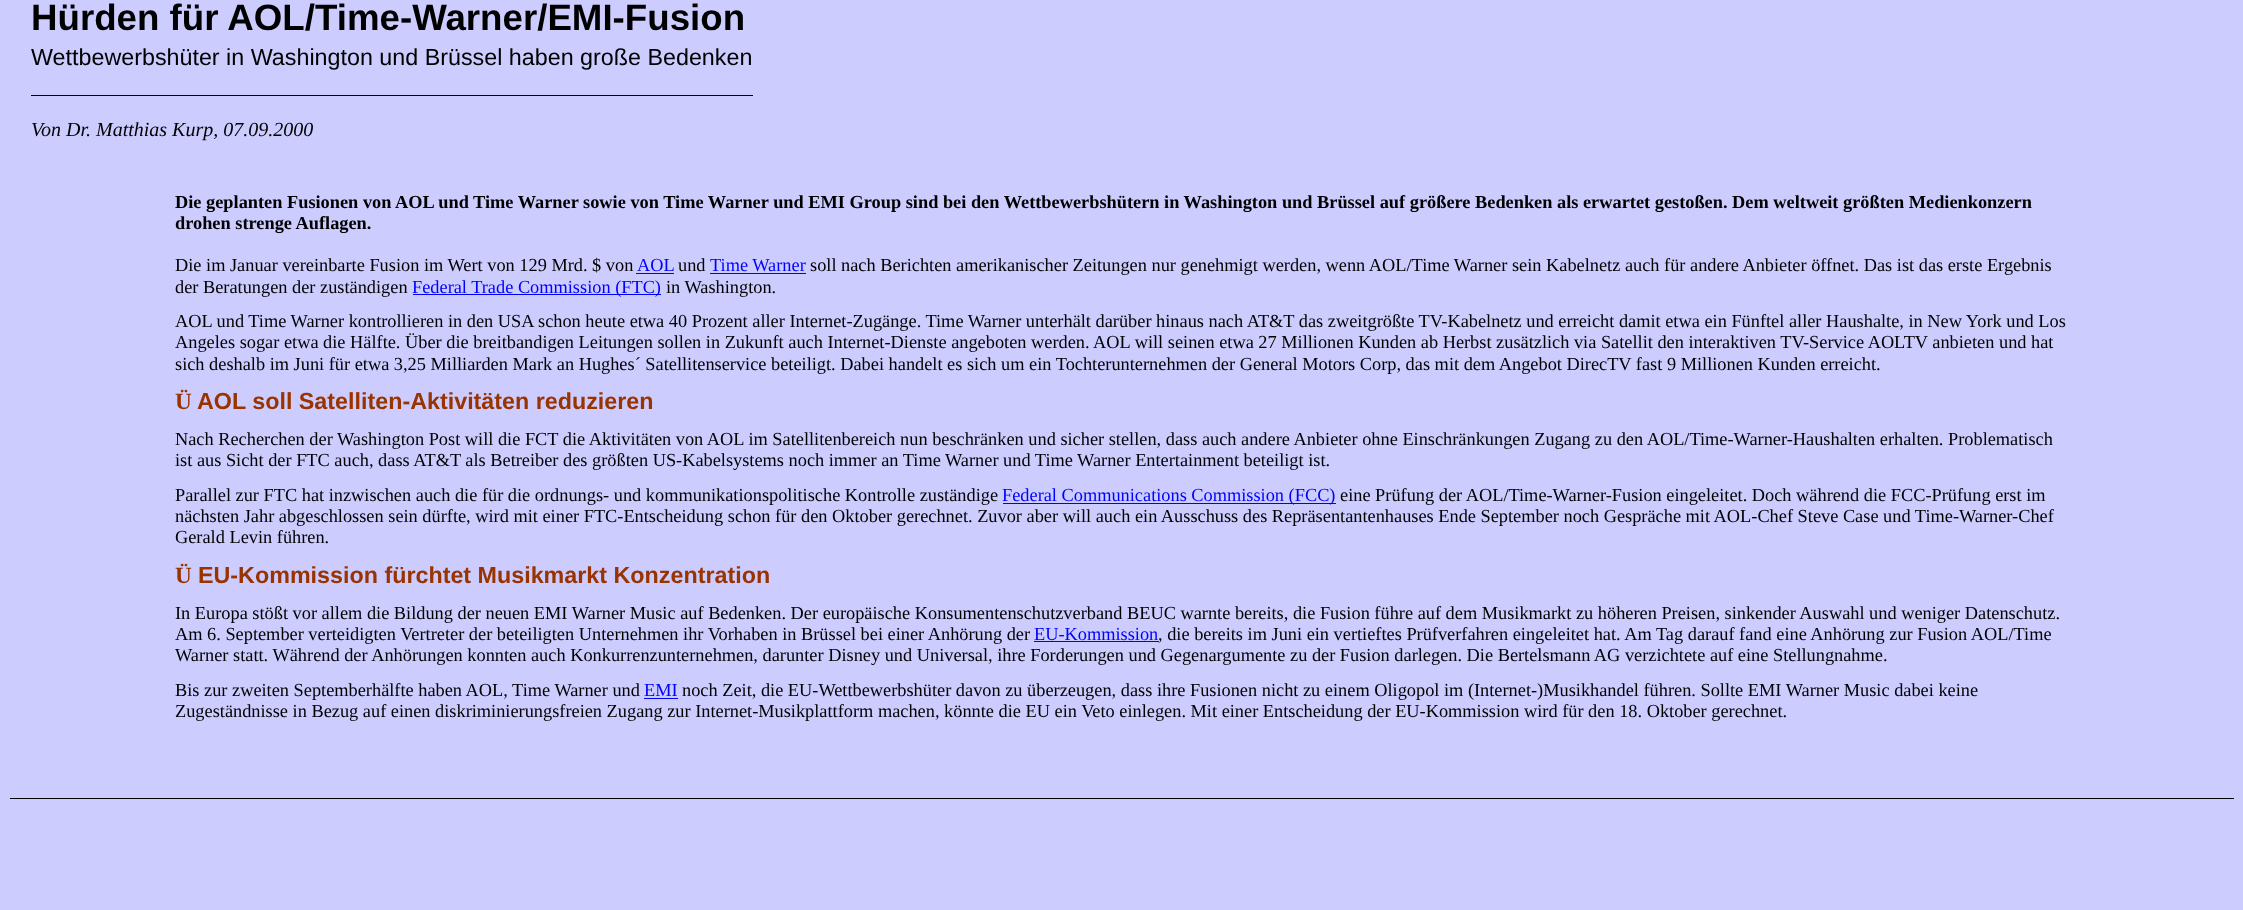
(async () => {
  const canvas = document.querySelector("canvas");
  canvas.width = 2243;
  canvas.height = 910;
  const ctx = canvas.getContext("2d");
  ctx.miterLimit = 4;
  ctx.fontKerning = "normal";

  ctx.fillStyle = "#ccccff";
  ctx.fillRect(0, 0, 2243, 910);
  for (const [x, y, w, h, color] of [
    [31, 95, 722, 1, "#000000"],
    [636, 273, 38, 1, "#0000ff"],
    [710, 273, 96, 1, "#0000ff"],
    [413, 294, 248, 1, "#0000ff"],
    [1003, 503, 333, 1, "#0000ff"],
    [1034, 641, 125, 1, "#0000ff"],
    [644, 698, 34, 1, "#0000ff"],
    [10, 798, 2224, 1, "#000000"],
  ]) {
    ctx.fillStyle = color;
    ctx.fillRect(x, y, w, h);
  }
  ctx.font = "bold 36.7px Liberation Sans";
  ctx.fillText("Hürden für AOL/Time-Warner/EMI-Fusion", 31, 30);
  ctx.font = "23.3px Liberation Sans";
  ctx.fillText("Wettbewerbshüter in Washington und Brüssel haben große Bedenken", 31, 65);
  ctx.font = "italic 20px Liberation Serif";
  ctx.fillText("Von Dr. Matthias Kurp, 07.09.2000", 31, 136);
  ctx.font = "bold 18.33px Liberation Serif";
  ctx.fillText("Die geplanten Fusionen von AOL und Time Warner sowie von Time Warner und EMI Group sind bei den Wettbewerbshütern in Washington und Brüssel auf größere Bedenken als erwartet gestoßen. Dem weltweit größten Medienkonzern", 175, 208);
  ctx.fillText("drohen strenge Auflagen.", 175, 229);
  ctx.font = "18.33px Liberation Serif";
  ctx.fillText("Die im Januar vereinbarte Fusion im Wert von 129 Mrd. $ von", 175, 271);
  ctx.fillStyle = "#0000ff";
  ctx.fillText("AOL", 637, 271);
  ctx.fillStyle = "#000000";
  ctx.fillText("und", 678, 271);
  ctx.fillStyle = "#0000ff";
  ctx.fillText("Time Warner", 710, 271);
  ctx.fillStyle = "#000000";
  ctx.fillText("soll nach Berichten amerikanischer Zeitungen nur genehmigt werden, wenn AOL/Time Warner sein Kabelnetz auch für andere Anbieter öffnet. Das ist das erste Ergebnis", 810, 271);
  ctx.fillText("der Beratungen der zuständigen", 175, 293);
  ctx.fillStyle = "#0000ff";
  ctx.fillText("Federal Trade Commission (FTC)", 412, 293);
  ctx.fillStyle = "#000000";
  for (const [text, x, y] of [
    ["in Washington.", 666, 293],
    ["AOL und Time Warner kontrollieren in den USA schon heute etwa 40 Prozent aller Internet-Zugänge. Time Warner unterhält darüber hinaus nach AT&T das zweitgrößte TV-Kabelnetz und erreicht damit etwa ein Fünftel aller Haushalte, in New York und Los", 175, 327],
    ["Angeles sogar etwa die Hälfte. Über die breitbandigen Leitungen sollen in Zukunft auch Internet-Dienste angeboten werden. AOL will seinen etwa 27 Millionen Kunden ab Herbst zusätzlich via Satellit den interaktiven TV-Service AOLTV anbieten und hat", 175, 348],
    ["sich deshalb im Juni für etwa 3,25 Milliarden Mark an Hughes´ Satellitenservice beteiligt. Dabei handelt es sich um ein Tochterunternehmen der General Motors Corp, das mit dem Angebot DirecTV fast 9 Millionen Kunden erreicht.", 175, 370],
  ]) {
    ctx.fillText(text, x, y);
  }
  ctx.font = "bold 23.3px Liberation Serif";
  ctx.fillStyle = "#993300";
  ctx.fillText("Ü", 175, 409);
  ctx.font = "bold 23.3px Liberation Sans";
  ctx.fillText("AOL soll Satelliten-Aktivitäten reduzieren", 197, 409);
  ctx.font = "18.33px Liberation Serif";
  ctx.fillStyle = "#000000";
  for (const [text, x, y] of [
    ["Nach Recherchen der Washington Post will die FCT die Aktivitäten von AOL im Satellitenbereich nun beschränken und sicher stellen, dass auch andere Anbieter ohne Einschränkungen Zugang zu den AOL/Time-Warner-Haushalten erhalten. Problematisch", 175, 445],
    ["ist aus Sicht der FTC auch, dass AT&T als Betreiber des größten US-Kabelsystems noch immer an Time Warner und Time Warner Entertainment beteiligt ist.", 175, 466],
    ["Parallel zur FTC hat inzwischen auch die für die ordnungs- und kommunikationspolitische Kontrolle zuständige", 175, 501],
  ]) {
    ctx.fillText(text, x, y);
  }
  ctx.fillStyle = "#0000ff";
  ctx.fillText("Federal Communications Commission (FCC)", 1002, 501);
  ctx.fillStyle = "#000000";
  for (const [text, x, y] of [
    ["eine Prüfung der AOL/Time-Warner-Fusion eingeleitet. Doch während die FCC-Prüfung erst im", 1340, 501],
    ["nächsten Jahr abgeschlossen sein dürfte, wird mit einer FTC-Entscheidung schon für den Oktober gerechnet. Zuvor aber will auch ein Ausschuss des Repräsentantenhauses Ende September noch Gespräche mit AOL-Chef Steve Case und Time-Warner-Chef", 175, 522],
    ["Gerald Levin führen.", 175, 543],
  ]) {
    ctx.fillText(text, x, y);
  }
  ctx.font = "bold 23.3px Liberation Serif";
  ctx.fillStyle = "#993300";
  ctx.fillText("Ü", 175, 583);
  ctx.font = "bold 23.3px Liberation Sans";
  ctx.fillText("EU-Kommission fürchtet Musikmarkt Konzentration", 198, 583);
  ctx.font = "18.33px Liberation Serif";
  ctx.fillStyle = "#000000";
  ctx.fillText("In Europa stößt vor allem die Bildung der neuen EMI Warner Music auf Bedenken. Der europäische Konsumentenschutzverband BEUC warnte bereits, die Fusion führe auf dem Musikmarkt zu höheren Preisen, sinkender Auswahl und weniger Datenschutz.", 175, 619);
  ctx.fillText("Am 6. September verteidigten Vertreter der beteiligten Unternehmen ihr Vorhaben in Brüssel bei einer Anhörung der", 175, 640);
  ctx.fillStyle = "#0000ff";
  ctx.fillText("EU-Kommission", 1034, 640);
  ctx.fillStyle = "#000000";
  for (const [text, x, y] of [
    [", die bereits im Juni ein vertieftes Prüfverfahren eingeleitet hat. Am Tag darauf fand eine Anhörung zur Fusion AOL/Time", 1158, 640],
    ["Warner statt. Während der Anhörungen konnten auch Konkurrenzunternehmen, darunter Disney und Universal, ihre Forderungen und Gegenargumente zu der Fusion darlegen. Die Bertelsmann AG verzichtete auf eine Stellungnahme.", 175, 661],
    ["Bis zur zweiten Septemberhälfte haben AOL, Time Warner und", 175, 696],
  ]) {
    ctx.fillText(text, x, y);
  }
  ctx.fillStyle = "#0000ff";
  ctx.fillText("EMI", 644, 696);
  ctx.fillStyle = "#000000";
  ctx.fillText("noch Zeit, die EU-Wettbewerbshüter davon zu überzeugen, dass ihre Fusionen nicht zu einem Oligopol im (Internet-)Musikhandel führen. Sollte EMI Warner Music dabei keine", 682, 696);
  ctx.fillText("Zugeständnisse in Bezug auf einen diskriminierungsfreien Zugang zur Internet-Musikplattform machen, könnte die EU ein Veto einlegen. Mit einer Entscheidung der EU-Kommission wird für den 18. Oktober gerechnet.", 175, 717);
})();
